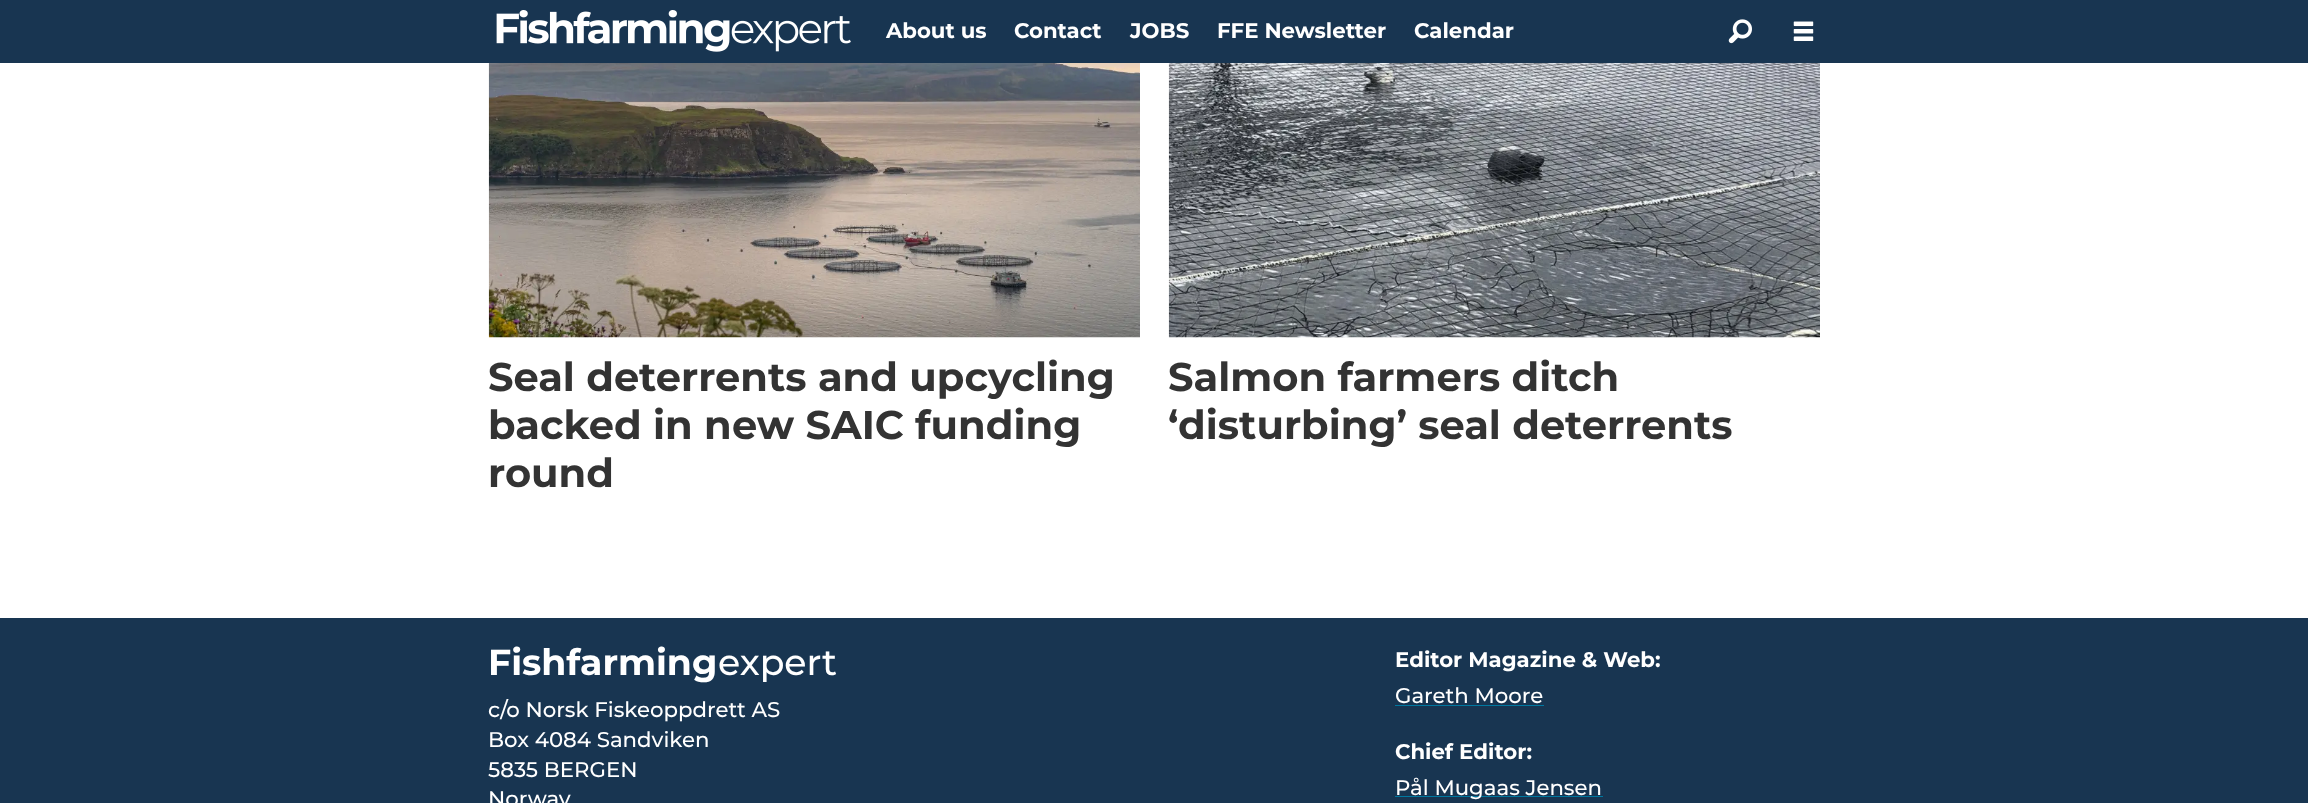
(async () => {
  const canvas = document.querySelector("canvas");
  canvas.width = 2308;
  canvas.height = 803;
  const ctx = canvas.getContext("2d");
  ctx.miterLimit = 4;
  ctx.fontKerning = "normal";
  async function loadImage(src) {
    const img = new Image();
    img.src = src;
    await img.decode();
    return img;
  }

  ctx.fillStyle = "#ffffff";
  ctx.fillRect(0, 0, 2308, 803);
  ctx.fillStyle = "#183551";
  ctx.fillRect(0, 0, 2308, 63);
  ctx.drawImage(await loadImage("img/1.png"), 496, 10, 355, 42);
  ctx.drawImage(await loadImage("img/2.png"), 1728, 19, 24, 25);
  ctx.drawImage(await loadImage("img/3.png"), 1793, 21, 21, 20);
  ctx.drawImage(await loadImage("img/4.png"), 488, 63, 652, 275);
  ctx.drawImage(await loadImage("img/5.png"), 1168, 63, 652, 275);
  for (const [x, y, w, h, color] of [
    [0, 618, 2308, 185, "#183551"],
    [1395, 705, 149, 1, "#0078a0"],
    [1395, 796, 208, 1, "#0078a0"],
  ]) {
    ctx.fillStyle = color;
    ctx.fillRect(x, y, w, h);
  }
  ctx.font = "bold 21.25px Montserrat";
  ctx.fillStyle = "#ffffff";
  for (const [text, x, y] of [
    ["About us", 886, 38],
    ["Contact", 1014, 38],
    ["JOBS", 1130, 38],
    ["FFE Newsletter", 1217, 38],
    ["Calendar", 1414, 38],
  ]) {
    ctx.fillText(text, x, y);
  }
  ctx.font = "bold 40px Montserrat";
  ctx.fillStyle = "#333333";
  for (const [text, x, y] of [
    ["Seal deterrents and upcycling", 488, 391],
    ["backed in new SAIC funding", 488, 439],
    ["round", 488, 487],
    ["Salmon farmers ditch", 1168, 391],
    ["‘disturbing’ seal deterrents", 1168, 439],
  ]) {
    ctx.fillText(text, x, y);
  }
  ctx.font = "bold 36.25px Montserrat";
  ctx.fillStyle = "#ffffff";
  ctx.fillText("Fishfarming", 488, 675);
  ctx.font = "500 36.25px Montserrat";
  ctx.fillText("expert", 718, 675);
  ctx.font = "500 21.25px Montserrat";
  for (const [text, x, y] of [
    ["c/o Norsk Fiskeoppdrett AS", 488, 717],
    ["Box 4084 Sandviken", 488, 747],
    ["5835 BERGEN", 488, 777],
    ["Norway", 488, 806],
  ]) {
    ctx.fillText(text, x, y);
  }
  ctx.font = "bold 21.25px Montserrat";
  ctx.fillText("Editor Magazine & Web:", 1395, 667);
  ctx.font = "500 21.25px Montserrat";
  ctx.fillText("Gareth Moore", 1395, 703);
  ctx.font = "bold 21.25px Montserrat";
  ctx.fillText("Chief Editor:", 1395, 759);
  ctx.font = "500 21.25px Montserrat";
  ctx.fillText("Pål Mugaas Jensen", 1395, 795);
})();
